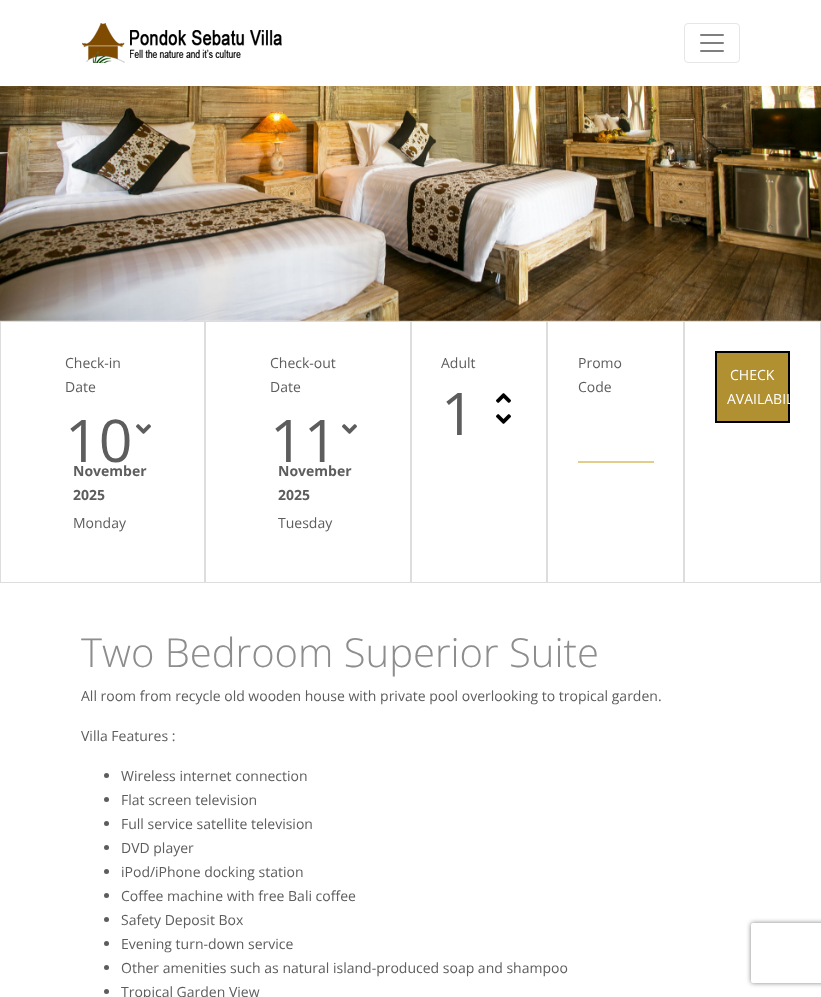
(async () => {
  const canvas = document.querySelector("canvas");
  canvas.width = 821;
  canvas.height = 997;
  const ctx = canvas.getContext("2d");
  ctx.miterLimit = 4;
  ctx.fontKerning = "normal";
  async function loadImage(src) {
    const img = new Image();
    img.src = src;
    await img.decode();
    return img;
  }
  let path;

  ctx.fillStyle = "#ffffff";
  ctx.fillRect(0, 0, 821, 997);
  ctx.drawImage(await loadImage("img/1.png"), 82, 23, 200, 40);
  ctx.beginPath();
  ctx.roundRect(684.5, 23.5, 55, 39, 3.5);
  ctx.strokeStyle = "#e6e6e6";
  ctx.stroke();
  ctx.drawImage(await loadImage("img/2.png"), 700, 34, 24, 18);
  ctx.drawImage(await loadImage("img/3.png"), 0, 86, 821, 235);
  ctx.strokeStyle = "#dddddd";
  ctx.strokeRect(0.5, 321.5, 204, 261);
  ctx.drawImage(await loadImage("img/4.png"), 136, 424, 15, 10);
  ctx.strokeRect(205.5, 321.5, 205, 261);
  ctx.drawImage(await loadImage("img/4.png"), 342, 424, 15, 10);
  ctx.strokeRect(411.5, 321.5, 135, 261);
  ctx.drawImage(await loadImage("img/5.png"), 496, 393, 15, 10);
  ctx.drawImage(await loadImage("img/6.png"), 496, 414, 15, 10);
  ctx.strokeRect(547.5, 321.5, 136, 261);
  ctx.fillStyle = "#e4cd8a";
  ctx.fillRect(578, 461, 76, 2);
  ctx.strokeRect(684.5, 321.5, 136, 261);
  ctx.fillStyle = "#b19031";
  ctx.beginPath();
  ctx.rect(716, 352, 73, 70);
  ctx.fill();
  ctx.strokeStyle = "#000000";
  ctx.lineWidth = 2;
  ctx.stroke();
  ctx.fillStyle = "#5d5d5d";
  ctx.beginPath();
  ctx.arc(106.5, 775.5, 2.5, 0, Math.PI * 2);
  ctx.fill();
  ctx.beginPath();
  ctx.arc(106.5, 799.5, 2.5, 0, Math.PI * 2);
  ctx.fill();
  ctx.beginPath();
  ctx.arc(106.5, 823.5, 2.5, 0, Math.PI * 2);
  ctx.fill();
  ctx.beginPath();
  ctx.arc(106.5, 847.5, 2.5, 0, Math.PI * 2);
  ctx.fill();
  ctx.beginPath();
  ctx.arc(106.5, 871.5, 2.5, 0, Math.PI * 2);
  ctx.fill();
  ctx.beginPath();
  ctx.arc(106.5, 895.5, 2.5, 0, Math.PI * 2);
  ctx.fill();
  ctx.beginPath();
  ctx.arc(106.5, 919.5, 2.5, 0, Math.PI * 2);
  ctx.fill();
  ctx.beginPath();
  ctx.arc(106.5, 943.5, 2.5, 0, Math.PI * 2);
  ctx.fill();
  ctx.beginPath();
  ctx.arc(106.5, 967.5, 2.5, 0, Math.PI * 2);
  ctx.fill();
  ctx.beginPath();
  ctx.arc(106.5, 991.5, 2.5, 0, Math.PI * 2);
  ctx.fill();
  ctx.save();
  path = new Path2D("M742 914H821V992H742ZM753 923H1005C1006 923 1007 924 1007 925V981C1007 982 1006 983 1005 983H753C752 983 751 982 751 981V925C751 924 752 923 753 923Z");
  ctx.clip(path, "evenodd");
  ctx.fillStyle = "#808080";
  ctx.filter = "blur(2.5px)";
  ctx.beginPath();
  ctx.roundRect(751, 923, 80, 60, 2);
  ctx.fill();
  ctx.filter = "none";
  ctx.restore();
  ctx.font = "14px Open Sans";
  ctx.fillText("Check-in", 65, 368);
  ctx.fillText("Date", 65, 392);
  ctx.font = "59px Open Sans";
  ctx.fillText("10", 65, 462);
  ctx.font = "bold 14px Open Sans";
  ctx.fillText("November", 73, 476);
  ctx.fillText("2025", 73, 500);
  ctx.font = "14px Open Sans";
  for (const [text, x, y] of [
    ["Monday", 73, 528],
    ["Check-out", 270, 368],
    ["Date", 270, 392],
  ]) {
    ctx.fillText(text, x, y);
  }
  ctx.font = "59px Open Sans";
  ctx.fillText("11", 270, 462);
  ctx.font = "bold 14px Open Sans";
  ctx.fillText("November", 278, 476);
  ctx.fillText("2025", 278, 500);
  ctx.font = "14px Open Sans";
  ctx.fillText("Tuesday", 278, 528);
  ctx.fillText("Adult", 441, 368);
  ctx.font = "59px Open Sans";
  ctx.fillText("1", 441, 435);
  ctx.font = "14px Open Sans";
  ctx.fillText("Promo", 578, 368);
  ctx.fillText("Code", 578, 392);
  ctx.fillStyle = "#ffffff";
  ctx.fillText("CHECK", 730, 380);
  ctx.fillText("AVAILABIL", 727, 404);
  ctx.font = "300 40px Open Sans";
  ctx.fillStyle = "#8d8d8d";
  ctx.fillText("Two Bedroom Superior Suite", 81, 667);
  ctx.font = "14px Open Sans";
  ctx.fillStyle = "#5d5d5d";
  for (const [text, x, y] of [
    ["All room from recycle old wooden house with private pool overlooking to tropical garden.", 81, 701],
    ["Villa Features :", 81, 741],
    ["Wireless internet connection", 121, 781],
    ["Flat screen television", 121, 805],
    ["Full service satellite television", 121, 829],
    ["DVD player", 121, 853],
    ["iPod/iPhone docking station", 121, 877],
    ["Coffee machine with free Bali coffee", 121, 901],
    ["Safety Deposit Box", 121, 925],
    ["Evening turn-down service", 121, 949],
    ["Other amenities such as natural island-produced soap and shampoo", 121, 973],
    ["Tropical Garden View", 121, 997],
  ]) {
    ctx.fillText(text, x, y);
  }
})();
